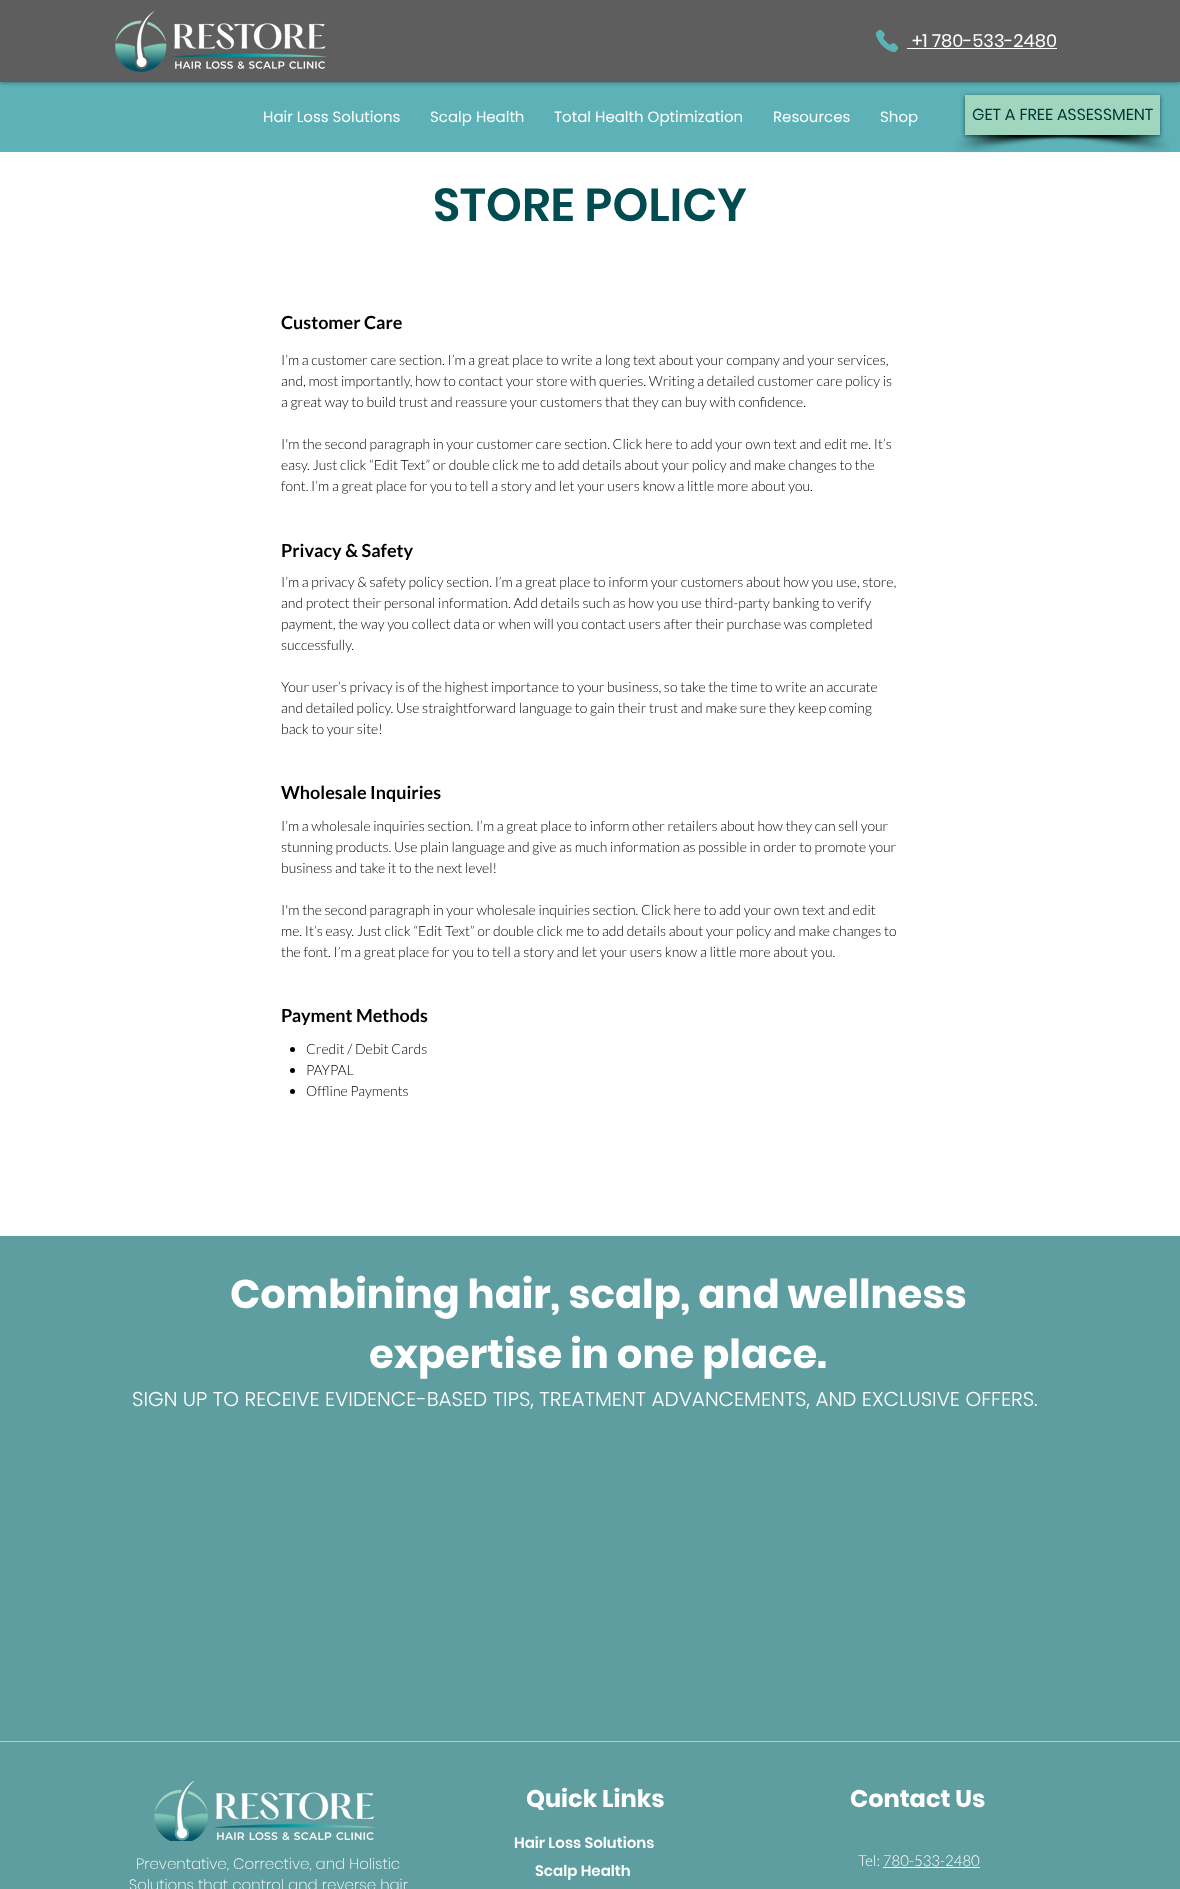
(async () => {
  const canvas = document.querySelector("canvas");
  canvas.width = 1180;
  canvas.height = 1889;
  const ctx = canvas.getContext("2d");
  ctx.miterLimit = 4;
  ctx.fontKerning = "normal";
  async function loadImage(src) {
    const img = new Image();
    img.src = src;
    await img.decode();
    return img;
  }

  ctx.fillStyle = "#ffffff";
  ctx.fillRect(0, 0, 1180, 1889);
  ctx.fillStyle = "#5cb2b7";
  ctx.fillRect(0, 82, 1180, 70);
  ctx.fillStyle = "rgba(0, 0, 0, 0.5)";
  ctx.filter = "blur(2.5px)";
  ctx.beginPath();
  ctx.rect(0, 0, 1180, 82);
  ctx.fill();
  ctx.filter = "none";
  ctx.fillStyle = "#5e5e5e";
  ctx.fillRect(0, 0, 1180, 82);
  ctx.drawImage(await loadImage("img/1.png"), 115, 10, 212, 63);
  ctx.drawImage(await loadImage("img/2.png"), 875, 29, 24, 24);
  ctx.fillStyle = "#ffffff";
  ctx.fillRect(907, 48, 150, 1);
  ctx.drawImage(await loadImage("img/3.png"), 956, 135, 144, 18);
  ctx.drawImage(await loadImage("img/4.png"), 1042, 135, 127, 18);
  ctx.fillStyle = "rgba(0, 0, 0, 0.6)";
  ctx.filter = "blur(2px)";
  ctx.beginPath();
  ctx.rect(965, 96, 195, 40);
  ctx.fill();
  ctx.filter = "none";
  ctx.fillStyle = "#a1d6be";
  ctx.fillRect(965, 95, 195, 40);
  ctx.fillStyle = "#000000";
  ctx.beginPath();
  ctx.arc(292.5, 1049.5, 2.5, 0, Math.PI * 2);
  ctx.fill();
  ctx.beginPath();
  ctx.arc(292.5, 1070.5, 2.5, 0, Math.PI * 2);
  ctx.fill();
  ctx.beginPath();
  ctx.arc(292.5, 1091.5, 2.5, 0, Math.PI * 2);
  ctx.fill();
  for (const [x, y, w, h, color] of [
    [0, 1236, 1180, 653, "#5f9ea0"],
    [0, 1741, 1180, 1, "#b2d0d1"],
    [883, 1867, 97, 1, "#ffffff"],
  ]) {
    ctx.fillStyle = color;
    ctx.fillRect(x, y, w, h);
  }
  ctx.drawImage(await loadImage("img/5.png"), 154, 1781, 222, 60);
  ctx.font = "18px 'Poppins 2'";
  ctx.fillText("+1 780-533-2480", 912, 47);
  ctx.font = "15px Poppins";
  for (const [text, x, y] of [
    ["Hair Loss Solutions", 263, 122],
    ["Scalp Health", 430, 122],
    ["Total Health Optimization", 554, 122],
    ["Resources", 773, 122],
    ["Shop", 880, 122],
  ]) {
    ctx.fillText(text, x, y);
  }
  ctx.font = "16px 'Poppins 2'";
  ctx.fillStyle = "#003637";
  ctx.fillText("GET A FREE ASSESSMENT", 972, 120);
  ctx.font = "600 46px Poppins";
  ctx.fillStyle = "#004c50";
  ctx.fillText("STORE POLICY", 433, 221);
  ctx.font = "bold 18px Lato";
  ctx.fillStyle = "#000000";
  ctx.fillText("Customer Care", 281, 329);
  ctx.font = "300 14px Lato";
  for (const [text, x, y] of [
    ["I’m a customer care section. I’m a great place to write a long text about your company and your services,", 281, 365],
    ["and, most importantly, how to contact your store with queries. Writing a detailed customer care policy is", 281, 386],
    ["a great way to build trust and reassure your customers that they can buy with confidence.", 281, 407],
    ["I'm the second paragraph in your customer care section. Click here to add your own text and edit me. It’s", 281, 449],
    ["easy. Just click “Edit Text” or double click me to add details about your policy and make changes to the", 281, 470],
    ["font. I’m a great place for you to tell a story and let your users know a little more about you.", 281, 491],
  ]) {
    ctx.fillText(text, x, y);
  }
  ctx.font = "bold 18px Lato";
  ctx.fillText("Privacy & Safety", 281, 557);
  ctx.font = "300 14px Lato";
  for (const [text, x, y] of [
    ["I’m a privacy & safety policy section. I’m a great place to inform your customers about how you use, store,", 281, 587],
    ["and protect their personal information. Add details such as how you use third-party banking to verify", 281, 608],
    ["payment, the way you collect data or when will you contact users after their purchase was completed", 281, 629],
    ["successfully.", 281, 650],
    ["Your user’s privacy is of the highest importance to your business, so take the time to write an accurate", 281, 692],
    ["and detailed policy. Use straightforward language to gain their trust and make sure they keep coming", 281, 713],
    ["back to your site!", 281, 734],
  ]) {
    ctx.fillText(text, x, y);
  }
  ctx.font = "bold 18px Lato";
  ctx.fillText("Wholesale Inquiries", 281, 799);
  ctx.font = "300 14px Lato";
  for (const [text, x, y] of [
    ["I’m a wholesale inquiries section. I’m a great place to inform other retailers about how they can sell your", 281, 831],
    ["stunning products. Use plain language and give as much information as possible in order to promote your", 281, 852],
    ["business and take it to the next level!", 281, 873],
    ["I'm the second paragraph in your wholesale inquiries section. Click here to add your own text and edit", 281, 915],
    ["me. It’s easy. Just click “Edit Text” or double click me to add details about your policy and make changes to", 281, 936],
    ["the font. I’m a great place for you to tell a story and let your users know a little more about you.", 281, 957],
  ]) {
    ctx.fillText(text, x, y);
  }
  ctx.font = "bold 18px Lato";
  ctx.fillText("Payment Methods", 281, 1022);
  ctx.font = "300 14px Lato";
  for (const [text, x, y] of [
    ["Credit / Debit Cards", 306, 1054],
    ["PAYPAL", 306, 1075],
    ["Offline Payments", 306, 1096],
  ]) {
    ctx.fillText(text, x, y);
  }
  ctx.font = "bold 40px Poppins";
  ctx.fillStyle = "#ffffff";
  ctx.fillText("Combining hair, scalp, and wellness", 230, 1308);
  ctx.fillText("expertise in one place.", 369, 1368);
  ctx.font = "300 20px Poppins";
  ctx.fillText("SIGN UP TO RECEIVE EVIDENCE-BASED TIPS, TREATMENT ADVANCEMENTS, AND EXCLUSIVE OFFERS.", 132, 1406);
  ctx.font = "bold 24px Poppins";
  ctx.fillText("Quick Links", 526, 1807);
  ctx.font = "600 15px Poppins";
  ctx.fillText("Hair Loss Solutions", 514, 1848);
  ctx.fillText("Scalp Health", 535, 1876);
  ctx.font = "bold 24px Poppins";
  ctx.fillText("Contact Us", 850, 1807);
  ctx.font = "300 15px Lato";
  ctx.fillText("Tel: 780-533-2480", 858, 1866);
  ctx.font = "200 15px Poppins";
  ctx.fillText("Preventative, Corrective, and Holistic", 136, 1869);
  ctx.fillText("Solutions that control and reverse hair", 129, 1890);
})();
